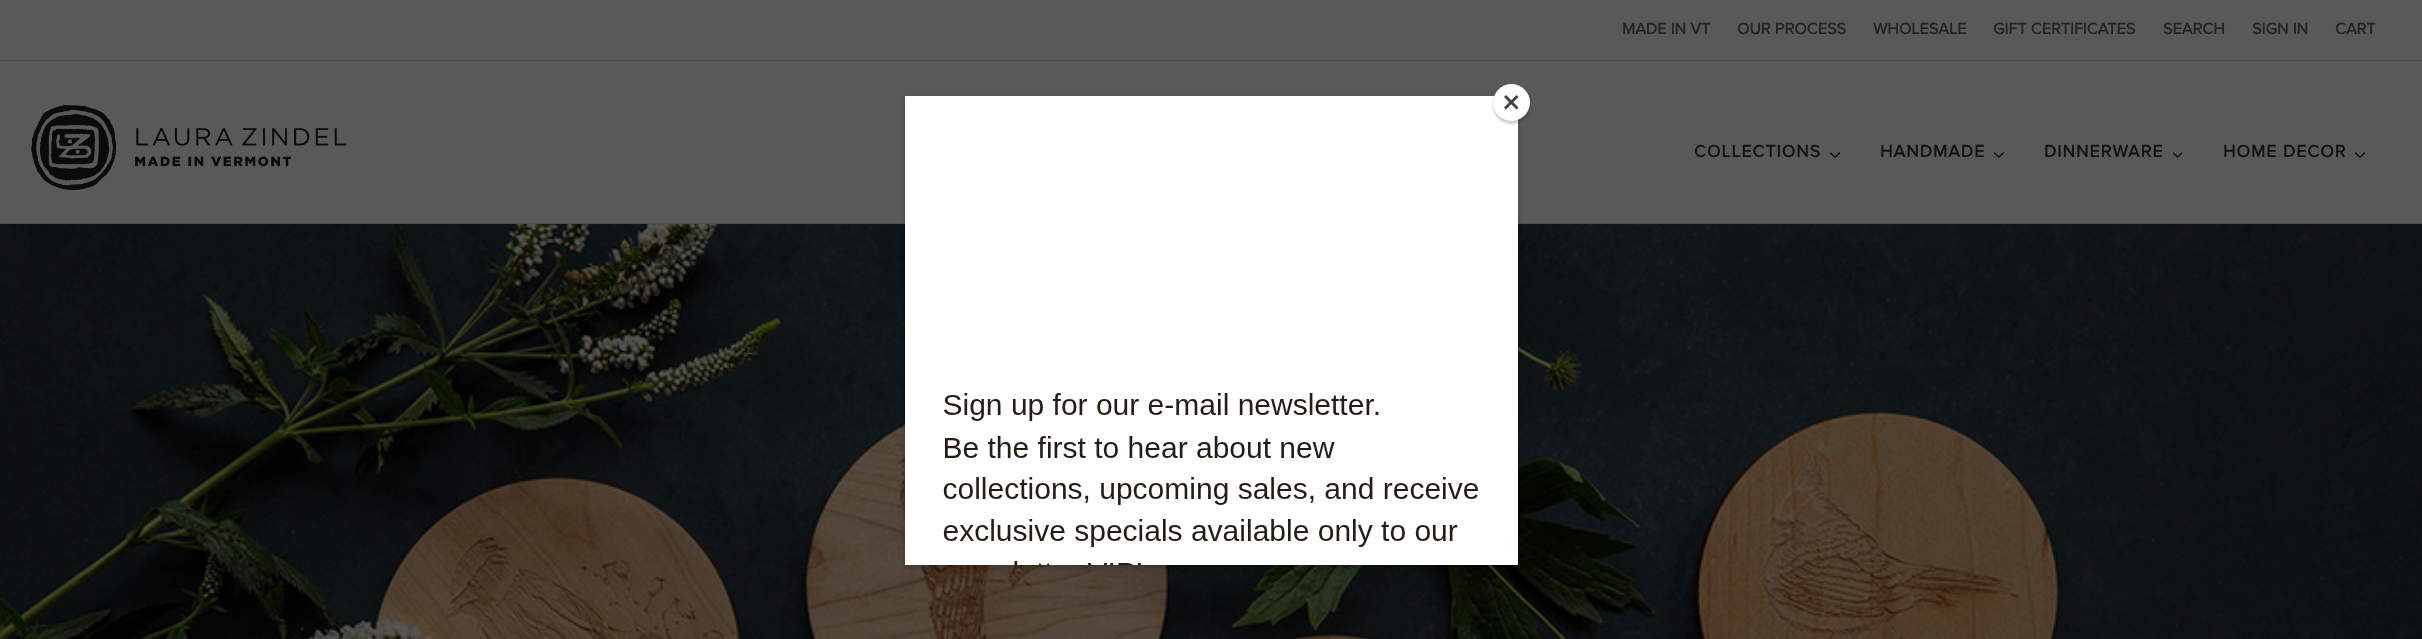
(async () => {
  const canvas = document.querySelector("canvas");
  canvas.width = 2422;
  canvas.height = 639;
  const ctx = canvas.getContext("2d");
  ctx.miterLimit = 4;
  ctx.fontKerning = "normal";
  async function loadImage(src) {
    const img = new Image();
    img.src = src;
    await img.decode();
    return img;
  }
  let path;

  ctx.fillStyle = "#ffffff";
  ctx.fillRect(0, 0, 2422, 639);
  ctx.fillStyle = "#595959";
  ctx.fillRect(0, 0, 2422, 223);
  ctx.fillStyle = "#505050";
  ctx.fillRect(0, 223, 2422, 1);
  ctx.drawImage(await loadImage("img/6.png"), 0, 224, 2422, 415);
  ctx.fillStyle = "rgba(0, 0, 0, 0.2)";
  ctx.filter = "blur(2.5px)";
  ctx.beginPath();
  ctx.rect(905, 99, 613, 469);
  ctx.fill();
  ctx.filter = "none";
  ctx.drawImage(await loadImage("img/1.png"), 905, 96, 613, 469);
  ctx.filter = "blur(1px)";
  ctx.beginPath();
  ctx.roundRect(1493, 86, 37, 38, 18.5);
  ctx.fill();
  ctx.filter = "none";
  ctx.fillStyle = "#ffffff";
  ctx.beginPath();
  ctx.arc(1511.5, 102.5, 18.5, 0, Math.PI * 2);
  ctx.fill();
  ctx.fillStyle = "#414141";
  path = new Path2D("M1516.5 95L1518.5 97L1506 109.5L1504 107.5Z");
  ctx.fill(path);
  path = new Path2D("M1504 97L1506 95L1518.5 107.5L1516.5 109.5Z");
  ctx.fill(path);
  ctx.fillStyle = "#4d4d4d";
  ctx.fillRect(0, 60, 2422, 1);
  ctx.drawImage(await loadImage("img/2.png"), 31, 105, 316, 85);
  ctx.drawImage(await loadImage("img/3.png"), 1830, 152, 10, 6);
  ctx.drawImage(await loadImage("img/4.png"), 1994, 152, 10, 6);
  ctx.drawImage(await loadImage("img/5.png"), 2173, 152, 9, 6);
  ctx.drawImage(await loadImage("img/3.png"), 2355, 152, 10, 6);
  ctx.font = "bold 16.25px Proxima Nova";
  ctx.fillStyle = "#242424";
  for (const [text, x, y] of [
    ["MADE IN VT", 1622, 34],
    ["OUR PROCESS", 1737, 34],
    ["WHOLESALE", 1873, 34],
    ["GIFT CERTIFICATES", 1993, 34],
    ["SEARCH", 2163, 34],
    ["SIGN IN", 2252, 34],
    ["CART", 2335, 34],
  ]) {
    ctx.fillText(text, x, y);
  }
  ctx.letterSpacing = "1.1px";
  ctx.font = "bold 17.5px Proxima Nova";
  ctx.fillStyle = "#121212";
  for (const [text, x, y] of [
    ["COLLECTIONS", 1694, 157],
    ["HANDMADE", 1880, 157],
    ["DINNERWARE", 2044, 157],
    ["HOME DECOR", 2223, 157],
  ]) {
    ctx.fillText(text, x, y);
  }
})();
